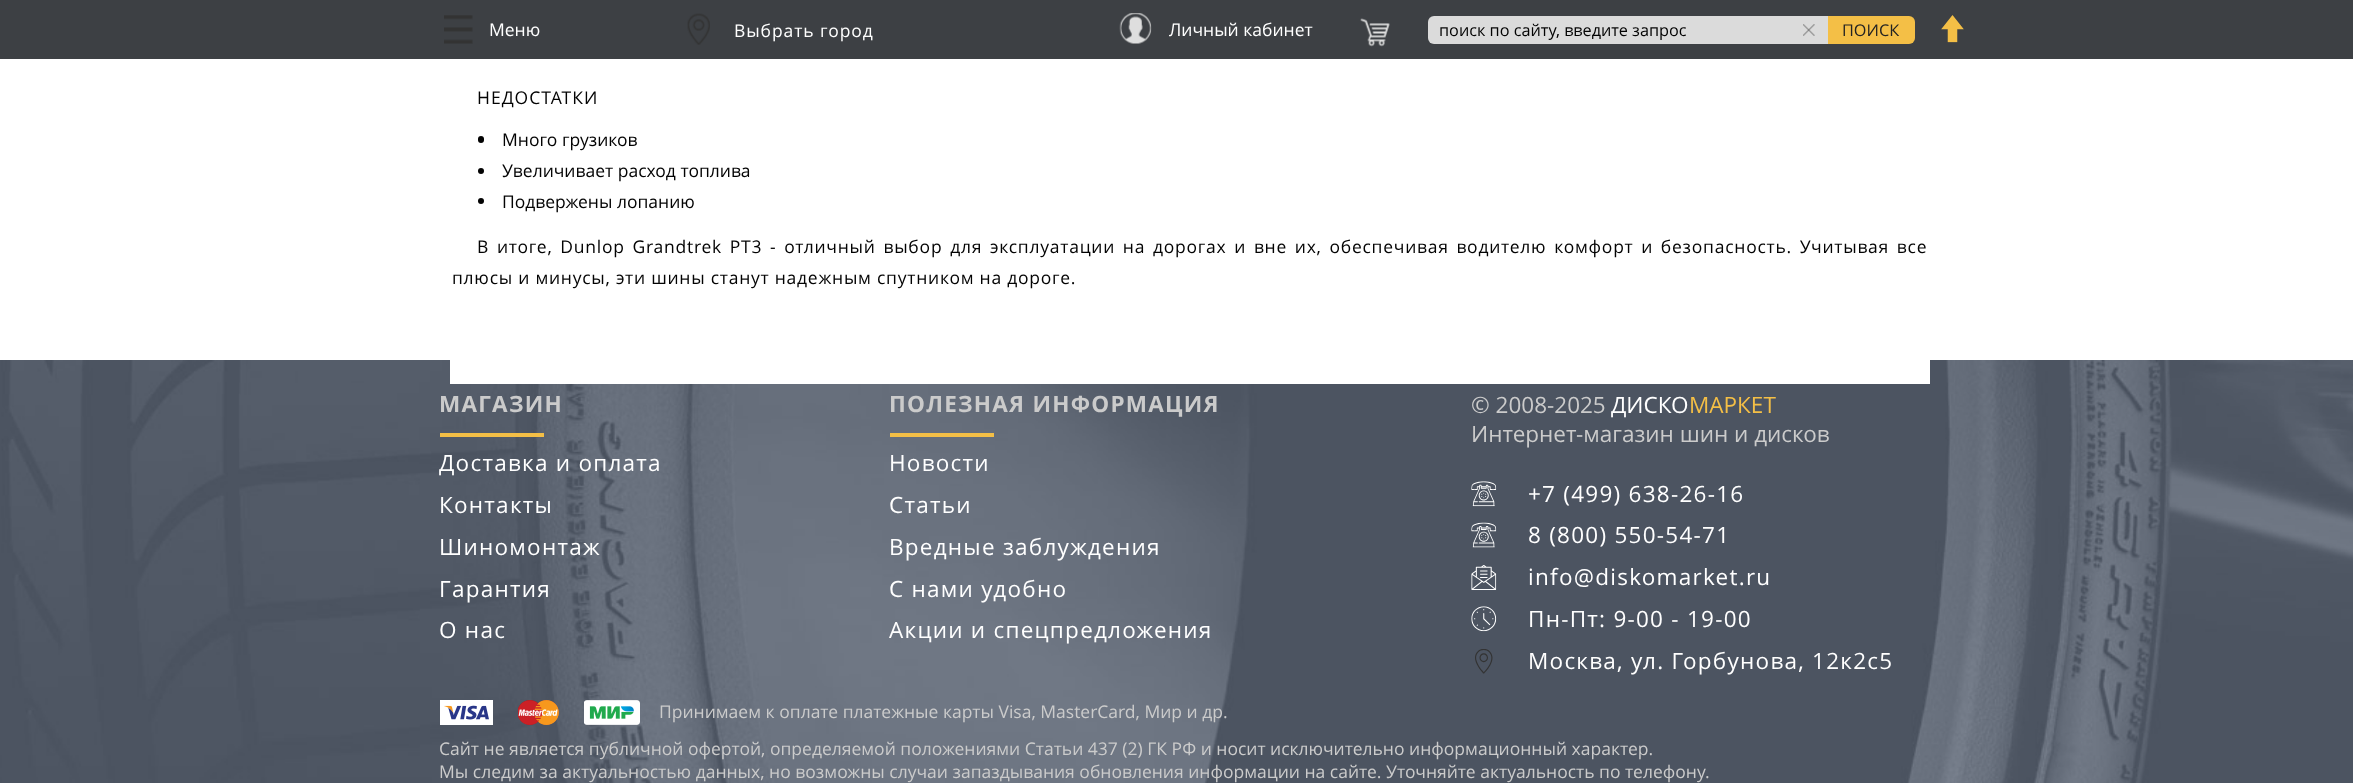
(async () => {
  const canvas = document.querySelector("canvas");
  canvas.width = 2353;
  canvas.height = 783;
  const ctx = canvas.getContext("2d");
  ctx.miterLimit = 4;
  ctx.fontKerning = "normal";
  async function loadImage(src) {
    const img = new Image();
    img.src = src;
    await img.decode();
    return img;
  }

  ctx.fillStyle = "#ffffff";
  ctx.fillRect(0, 0, 2353, 783);
  ctx.fillStyle = "#3d4044";
  ctx.fillRect(0, 0, 2353, 59);
  ctx.drawImage(await loadImage("img/1.png"), 444, 15, 29, 29);
  ctx.drawImage(await loadImage("img/2.png"), 687, 13, 23, 32);
  ctx.drawImage(await loadImage("img/3.png"), 1119, 13, 33, 31);
  ctx.drawImage(await loadImage("img/4.png"), 1360, 18, 30, 29);
  ctx.fillStyle = "#dbdbdb";
  ctx.beginPath();
  ctx.roundRect(1428, 16, 452, 28, 6);
  ctx.fill();
  ctx.drawImage(await loadImage("img/5.png"), 1803, 24, 12, 12);
  ctx.fillStyle = "#f4bf46";
  ctx.beginPath();
  ctx.roundRect(1828, 16, 87, 28, [0, 6, 6, 0]);
  ctx.fill();
  ctx.drawImage(await loadImage("img/6.png"), 1941, 15, 23, 28);
  ctx.drawImage(await loadImage("img/7.png"), 0, 360, 2353, 423);
  ctx.fillStyle = "#ffffff";
  ctx.fillRect(450, 360, 1480, 24);
  ctx.fillStyle = "#030303";
  ctx.beginPath();
  ctx.roundRect(478, 136, 6, 7, 3);
  ctx.fill();
  ctx.beginPath();
  ctx.arc(481, 171, 3, 0, Math.PI * 2);
  ctx.fill();
  ctx.beginPath();
  ctx.arc(481, 201, 3, 0, Math.PI * 2);
  ctx.fill();
  ctx.fillStyle = "#f4bf46";
  ctx.fillRect(440, 433, 104, 4);
  ctx.fillRect(890, 433, 104, 4);
  ctx.drawImage(await loadImage("img/8.png"), 1471, 481, 26, 26);
  ctx.drawImage(await loadImage("img/9.png"), 1471, 522, 26, 26);
  ctx.drawImage(await loadImage("img/10.png"), 1471, 565, 26, 25);
  ctx.drawImage(await loadImage("img/11.png"), 1471, 606, 26, 26);
  ctx.drawImage(await loadImage("img/12.png"), 1475, 649, 18, 25);
  ctx.drawImage(await loadImage("img/13.png"), 440, 700, 53, 25);
  ctx.drawImage(await loadImage("img/14.png"), 518, 700, 41, 25);
  ctx.drawImage(await loadImage("img/15.png"), 584, 700, 56, 25);
  ctx.font = "17.5px Open Sans";
  ctx.fillStyle = "#ffffff";
  ctx.fillText("Меню", 489, 36);
  ctx.letterSpacing = "0.9px";
  ctx.fillText("Выбрать город", 734, 37);
  ctx.letterSpacing = "0px";
  ctx.fillText("Личный кабинет", 1169, 36);
  ctx.font = "16.25px Open Sans";
  ctx.fillStyle = "#030303";
  ctx.fillText("поиск по сайту, введите запрос", 1439, 36);
  ctx.fillStyle = "#232323";
  ctx.fillText("ПОИСК", 1842, 36);
  ctx.letterSpacing = "1px";
  ctx.font = "17.5px Open Sans";
  ctx.fillStyle = "#030303";
  ctx.fillText("НЕДОСТАТКИ", 477, 104);
  ctx.letterSpacing = "0px";
  for (const [text, x, y] of [
    ["Много грузиков", 502, 146],
    ["Увеличивает расход топлива", 502, 177],
    ["Подвержены лопанию", 502, 208],
  ]) {
    ctx.fillText(text, x, y);
  }
  ctx.letterSpacing = "0.75px";
  ctx.wordSpacing = "2.5px";
  ctx.fillText("В итоге, Dunlop Grandtrek PT3 - отличный выбор для эксплуатации на дорогах и вне их, обеспечивая водителю комфорт и безопасность. Учитывая все", 477, 253);
  ctx.wordSpacing = "0px";
  ctx.fillText("плюсы и минусы, эти шины станут надежным спутником на дороге.", 452, 284);
  ctx.letterSpacing = "1.25px";
  ctx.font = "bold 22.5px Open Sans";
  ctx.fillStyle = "#cbcbcb";
  ctx.fillText("МАГАЗИН", 439, 412);
  ctx.font = "22.5px Open Sans";
  ctx.fillStyle = "#ffffff";
  for (const [text, x, y] of [
    ["Доставка и оплата", 439, 471],
    ["Контакты", 439, 513],
    ["Шиномонтаж", 439, 555],
    ["Гарантия", 439, 597],
    ["О нас", 439, 638],
  ]) {
    ctx.fillText(text, x, y);
  }
  ctx.font = "bold 22.5px Open Sans";
  ctx.fillStyle = "#cbcbcb";
  ctx.fillText("ПОЛЕЗНАЯ ИНФОРМАЦИЯ", 889, 412);
  ctx.font = "22.5px Open Sans";
  ctx.fillStyle = "#ffffff";
  for (const [text, x, y] of [
    ["Новости", 889, 471],
    ["Статьи", 889, 513],
    ["Вредные заблуждения", 889, 555],
    ["С нами удобно", 889, 597],
    ["Акции и спецпредложения", 889, 638],
  ]) {
    ctx.fillText(text, x, y);
  }
  ctx.letterSpacing = "0px";
  ctx.fillStyle = "#cbcbcb";
  ctx.fillText("© 2008-2025", 1471, 413);
  ctx.fillStyle = "#ffffff";
  ctx.fillText("ДИСКО", 1611, 413);
  ctx.fillStyle = "#f4bf46";
  ctx.fillText("МАРКЕТ", 1689, 413);
  ctx.fillStyle = "#cbcbcb";
  ctx.fillText("Интернет-магазин шин и дисков", 1471, 442);
  ctx.letterSpacing = "1.25px";
  ctx.fillStyle = "#ffffff";
  for (const [text, x, y] of [
    ["+7 (499) 638-26-16", 1528, 502],
    ["8 (800) 550-54-71", 1528, 543],
    ["info@diskomarket.ru", 1528, 585],
    ["Пн-Пт: 9-00 - 19-00", 1528, 627],
    ["Москва, ул. Горбунова, 12к2с5", 1528, 669],
  ]) {
    ctx.fillText(text, x, y);
  }
  ctx.letterSpacing = "0px";
  ctx.font = "17.5px Open Sans";
  ctx.fillStyle = "#cbcbcb";
  for (const [text, x, y] of [
    ["Принимаем к оплате платежные карты Visa, MasterCard, Мир и др.", 659, 718],
    ["Сайт не является публичной офертой, определяемой положениями Статьи 437 (2) ГК РФ и носит исключительно информационный характер.", 439, 755],
    ["Мы следим за актуальностью данных, но возможны случаи запаздывания обновления информации на сайте. Уточняйте актуальность по телефону.", 439, 778],
  ]) {
    ctx.fillText(text, x, y);
  }
})();
